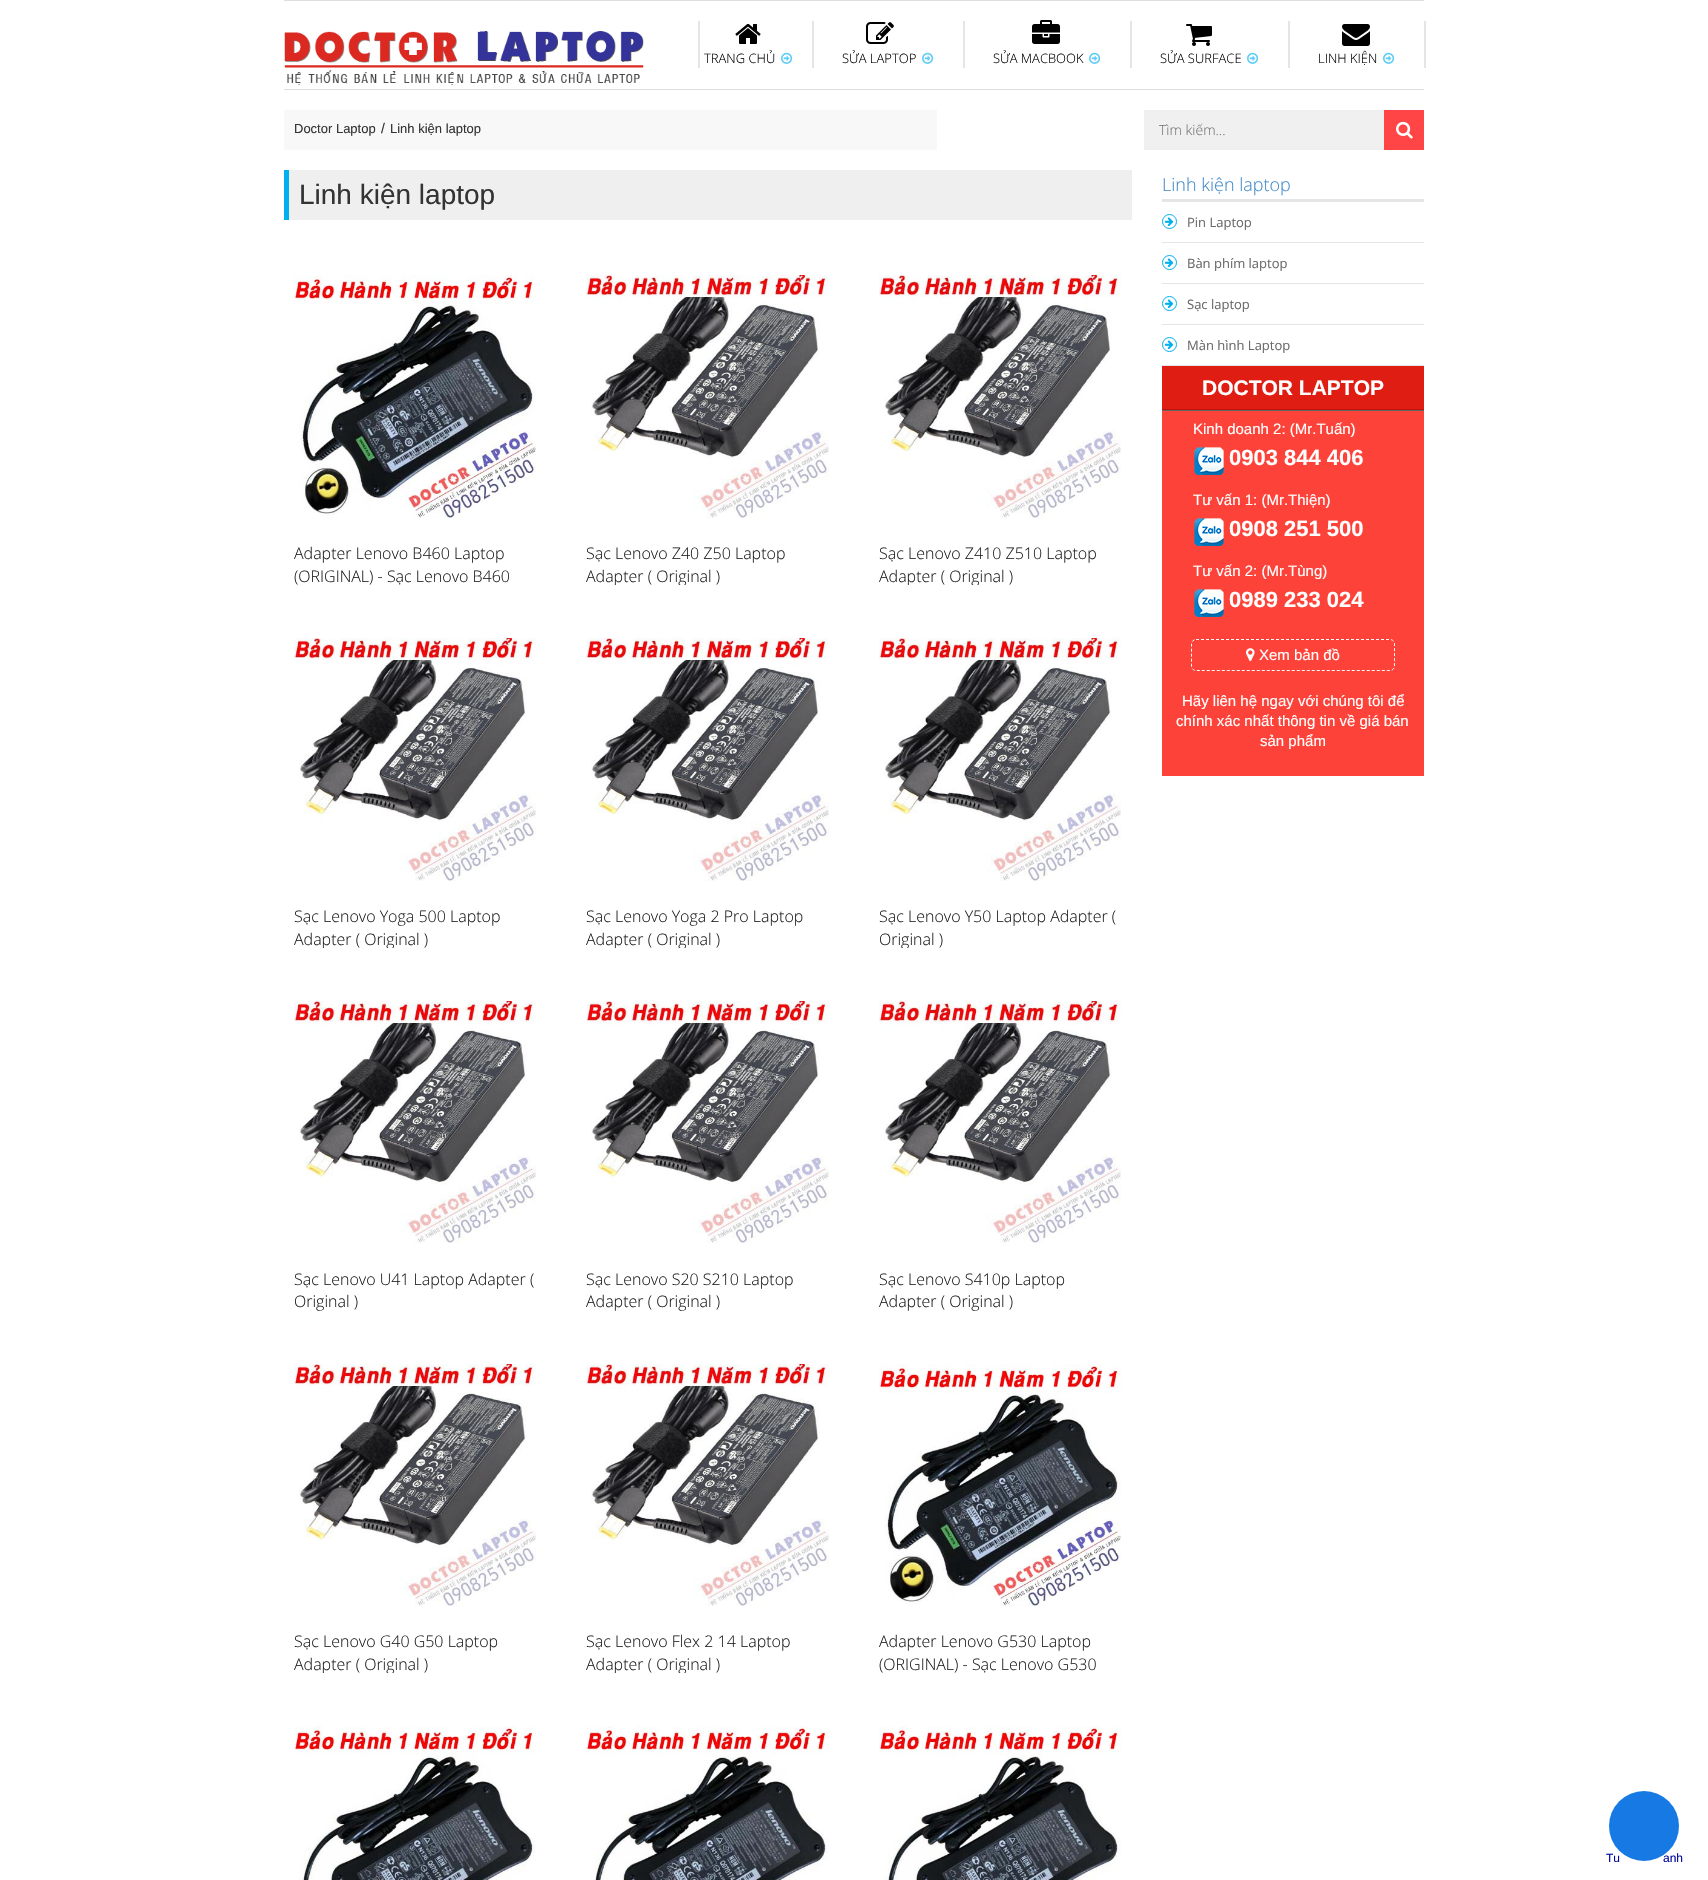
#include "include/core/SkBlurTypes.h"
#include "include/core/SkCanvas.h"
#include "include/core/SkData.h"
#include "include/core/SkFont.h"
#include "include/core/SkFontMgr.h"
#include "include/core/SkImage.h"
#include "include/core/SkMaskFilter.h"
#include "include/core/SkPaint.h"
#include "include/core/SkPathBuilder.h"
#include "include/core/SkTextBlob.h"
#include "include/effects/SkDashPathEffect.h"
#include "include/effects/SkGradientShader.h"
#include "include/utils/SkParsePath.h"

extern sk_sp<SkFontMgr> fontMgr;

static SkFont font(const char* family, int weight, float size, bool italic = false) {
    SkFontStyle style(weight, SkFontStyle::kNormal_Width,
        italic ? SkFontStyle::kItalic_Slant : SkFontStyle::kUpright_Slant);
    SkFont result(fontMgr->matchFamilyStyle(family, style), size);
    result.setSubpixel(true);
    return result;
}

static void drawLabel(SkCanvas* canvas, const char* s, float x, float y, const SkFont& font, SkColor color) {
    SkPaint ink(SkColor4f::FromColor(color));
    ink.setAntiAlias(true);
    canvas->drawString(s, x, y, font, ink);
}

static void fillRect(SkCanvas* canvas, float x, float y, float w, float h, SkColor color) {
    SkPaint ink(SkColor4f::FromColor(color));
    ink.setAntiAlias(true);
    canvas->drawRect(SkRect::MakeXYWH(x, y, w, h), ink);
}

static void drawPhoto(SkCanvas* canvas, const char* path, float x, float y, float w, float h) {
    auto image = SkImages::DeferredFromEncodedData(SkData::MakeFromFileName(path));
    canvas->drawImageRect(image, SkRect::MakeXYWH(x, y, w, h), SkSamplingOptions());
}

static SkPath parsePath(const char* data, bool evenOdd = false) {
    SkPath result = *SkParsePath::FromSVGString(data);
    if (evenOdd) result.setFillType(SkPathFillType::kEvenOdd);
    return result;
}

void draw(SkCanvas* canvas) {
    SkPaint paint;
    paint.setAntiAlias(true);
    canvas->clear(0xFFFFFFFF);
    fillRect(canvas, 284, 0, 1140, 1, 0xFFDDDDDD);
    fillRect(canvas, 284, 89, 1140, 1, 0xFFDDDDDD);
    drawPhoto(canvas, "assets/img1.png", 284, 31, 360, 54);
    fillRect(canvas, 698, 21, 2, 47, 0xFFE5E5E5);
    drawPhoto(canvas, "assets/img2.png", 735, 24, 26, 20);
    SkFont font1 = font("Open Sans", 300, 13);
    drawLabel(canvas, "TRANG CHỦ", 704, 63, font1, 0xFF000000);
    drawPhoto(canvas, "assets/img3.png", 781, 52, 12, 12);
    fillRect(canvas, 812, 21, 2, 47, 0xFFE5E5E5);
    drawPhoto(canvas, "assets/img4.png", 866, 22, 28, 22);
    drawLabel(canvas, "SỬA LAPTOP", 842, 63, font1, 0xFF000000);
    drawPhoto(canvas, "assets/img3.png", 922, 52, 12, 12);
    fillRect(canvas, 963, 21, 2, 47, 0xFFE5E5E5);
    drawPhoto(canvas, "assets/img5.png", 1032, 20, 28, 24);
    drawLabel(canvas, "SỬA MACBOOK", 993, 63, font1, 0xFF000000);
    drawPhoto(canvas, "assets/img3.png", 1089, 52, 12, 12);
    fillRect(canvas, 1130, 21, 2, 47, 0xFFE5E5E5);
    drawPhoto(canvas, "assets/img6.png", 1186, 24, 26, 22);
    drawLabel(canvas, "SỬA SURFACE", 1160, 63, font1, 0xFF000000);
    drawPhoto(canvas, "assets/img3.png", 1247, 52, 12, 12);
    fillRect(canvas, 1288, 21, 2, 47, 0xFFE5E5E5);
    drawPhoto(canvas, "assets/img7.png", 1342, 24, 28, 22);
    drawLabel(canvas, "LINH KIỆN", 1318, 63, font1, 0xFF000000);
    drawPhoto(canvas, "assets/img3.png", 1383, 52, 12, 12);
    fillRect(canvas, 1424, 21, 2, 47, 0xFFE5E5E5);
    fillRect(canvas, 284, 110, 653, 40, 0xFFF8F8F8);
    SkFont font2 = font("Liberation Sans", 400, 13);
    drawLabel(canvas, "Doctor Laptop", 294, 133, font2, 0xFF333333);
    SkFont font3 = font("Liberation Sans", 400, 14);
    drawLabel(canvas, "/", 381, 133, font3, 0xFF333333);
    drawLabel(canvas, "Linh kiện laptop", 390, 133, font2, 0xFF333333);
    fillRect(canvas, 1144, 110, 240, 40, 0xFFF0F0F0);
    SkFont font4 = font("Open Sans", 300, 14);
    drawLabel(canvas, "Tìm kiếm...", 1159, 135, font4, 0xFF757575);
    fillRect(canvas, 1384, 110, 40, 40, 0xFFFF4545);
    drawPhoto(canvas, "assets/img8.png", 1396, 121, 17, 18);
    fillRect(canvas, 289, 170, 843, 50, 0xFFEFEFEF);
    fillRect(canvas, 284, 170, 5, 50, 0xFF00AFF0);
    SkFont font5 = font("Liberation Sans", 400, 28);
    drawLabel(canvas, "Linh kiện laptop", 299, 204, font5, 0xFF333333);
    drawPhoto(canvas, "assets/img9.png", 294, 275, 242, 243);
    SkFont font6 = font("Open Sans", 300, 16);
    drawLabel(canvas, "Adapter Lenovo B460 Laptop", 294, 559, font6, 0xFF222222);
    drawLabel(canvas, "(ORIGINAL) - Sạc Lenovo B460", 294, 582, font6, 0xFF222222);
    drawPhoto(canvas, "assets/img10.png", 586, 275, 243, 243);
    drawLabel(canvas, "Sạc Lenovo Z40 Z50 Laptop", 586, 559, font6, 0xFF222222);
    canvas->save();
    canvas->clipRect(SkRect::MakeXYWH(586, 542, 243, 43));
    drawLabel(canvas, "Adapter ( Original )", 586, 582, font6, 0xFF222222);
    canvas->restore();
    drawPhoto(canvas, "assets/img11.png", 879, 275, 242, 243);
    drawLabel(canvas, "Sạc Lenovo Z410 Z510 Laptop", 879, 559, font6, 0xFF222222);
    canvas->save();
    canvas->clipRect(SkRect::MakeXYWH(879, 542, 242, 43));
    drawLabel(canvas, "Adapter ( Original )", 879, 582, font6, 0xFF222222);
    canvas->restore();
    drawPhoto(canvas, "assets/img11.png", 294, 638, 242, 243);
    drawLabel(canvas, "Sạc Lenovo Yoga 500 Laptop", 294, 922, font6, 0xFF222222);
    canvas->save();
    canvas->clipRect(SkRect::MakeXYWH(294, 905, 242, 43));
    drawLabel(canvas, "Adapter ( Original )", 294, 945, font6, 0xFF222222);
    canvas->restore();
    drawPhoto(canvas, "assets/img10.png", 586, 638, 243, 243);
    drawLabel(canvas, "Sạc Lenovo Yoga 2 Pro Laptop", 586, 922, font6, 0xFF222222);
    canvas->save();
    canvas->clipRect(SkRect::MakeXYWH(586, 905, 243, 43));
    drawLabel(canvas, "Adapter ( Original )", 586, 945, font6, 0xFF222222);
    canvas->restore();
    drawPhoto(canvas, "assets/img11.png", 879, 638, 242, 243);
    drawLabel(canvas, "Sạc Lenovo Y50 Laptop Adapter (", 879, 922, font6, 0xFF222222);
    canvas->save();
    canvas->clipRect(SkRect::MakeXYWH(879, 905, 242, 43));
    drawLabel(canvas, "Original )", 879, 945, font6, 0xFF222222);
    canvas->restore();
    drawPhoto(canvas, "assets/img12.png", 294, 1001, 242, 242);
    drawLabel(canvas, "Sạc Lenovo U41 Laptop Adapter (", 294, 1285, font6, 0xFF222222);
    drawLabel(canvas, "Original )", 294, 1307, font6, 0xFF222222);
    drawPhoto(canvas, "assets/img13.png", 586, 1001, 243, 242);
    drawLabel(canvas, "Sạc Lenovo S20 S210 Laptop", 586, 1285, font6, 0xFF222222);
    drawLabel(canvas, "Adapter ( Original )", 586, 1307, font6, 0xFF222222);
    drawPhoto(canvas, "assets/img12.png", 879, 1001, 242, 242);
    drawLabel(canvas, "Sạc Lenovo S410p Laptop", 879, 1285, font6, 0xFF222222);
    drawLabel(canvas, "Adapter ( Original )", 879, 1307, font6, 0xFF222222);
    drawPhoto(canvas, "assets/img14.png", 294, 1364, 242, 242);
    drawLabel(canvas, "Sạc Lenovo G40 G50 Laptop", 294, 1647, font6, 0xFF222222);
    canvas->save();
    canvas->clipRect(SkRect::MakeXYWH(294, 1630, 242, 43));
    drawLabel(canvas, "Adapter ( Original )", 294, 1670, font6, 0xFF222222);
    canvas->restore();
    drawPhoto(canvas, "assets/img15.png", 586, 1364, 243, 242);
    drawLabel(canvas, "Sạc Lenovo Flex 2 14 Laptop", 586, 1647, font6, 0xFF222222);
    canvas->save();
    canvas->clipRect(SkRect::MakeXYWH(586, 1630, 243, 43));
    drawLabel(canvas, "Adapter ( Original )", 586, 1670, font6, 0xFF222222);
    canvas->restore();
    drawPhoto(canvas, "assets/img16.png", 879, 1364, 242, 242);
    drawLabel(canvas, "Adapter Lenovo G530 Laptop", 879, 1647, font6, 0xFF222222);
    drawLabel(canvas, "(ORIGINAL) - Sạc Lenovo G530", 879, 1670, font6, 0xFF222222);
    drawPhoto(canvas, "assets/img17.png", 294, 1726, 242, 154);
    drawPhoto(canvas, "assets/img18.png", 586, 1726, 243, 154);
    drawPhoto(canvas, "assets/img17.png", 879, 1726, 242, 154);
    fillRect(canvas, 1162, 199, 262, 3, 0xFFE5E5E5);
    SkFont font7 = font("Open Sans", 300, 18);
    drawLabel(canvas, "Linh kiện laptop", 1162, 191, font7, 0xFF428BCA);
    fillRect(canvas, 1162, 242, 262, 1, 0xFFE5E5E5);
    paint.setStroke(true);
    paint.setStrokeWidth(1);
    paint.setColor(0xFF00AFF0);
    canvas->drawCircle(1169.5f, 221.5f, 7, paint);
    drawPhoto(canvas, "assets/img19.png", 1165, 217, 9, 10);
    SkFont font8 = font("Open Sans", 400, 13);
    drawLabel(canvas, "Pin Laptop", 1187, 227, font8, 0xFF6A6A6A);
    fillRect(canvas, 1162, 283, 262, 1, 0xFFE5E5E5);
    canvas->drawCircle(1169.5f, 262.5f, 7, paint);
    drawPhoto(canvas, "assets/img19.png", 1165, 258, 9, 10);
    drawLabel(canvas, "Bàn phím laptop", 1187, 268, font8, 0xFF6A6A6A);
    fillRect(canvas, 1162, 324, 262, 1, 0xFFE5E5E5);
    canvas->drawCircle(1169.5f, 303.5f, 7, paint);
    drawPhoto(canvas, "assets/img19.png", 1165, 299, 9, 10);
    drawLabel(canvas, "Sạc laptop", 1187, 309, font8, 0xFF6A6A6A);
    fillRect(canvas, 1162, 365, 262, 1, 0xFFE5E5E5);
    canvas->drawCircle(1169.5f, 344.5f, 7, paint);
    drawPhoto(canvas, "assets/img19.png", 1165, 340, 9, 10);
    drawLabel(canvas, "Màn hình Laptop", 1187, 350, font8, 0xFF6A6A6A);
    fillRect(canvas, 1162, 366, 262, 43, 0xFFE01D12);
    fillRect(canvas, 1162, 409, 262, 1, 0xFFBA1108);
    SkFont font9 = font("Liberation Sans", 700, 21);
    drawLabel(canvas, "DOCTOR LAPTOP", 1202, 395, font9, 0xFFFFFFFF);
    fillRect(canvas, 1162, 411, 262, 365, 0xFFFD4339);
    fillRect(canvas, 1162, 410, 262, 1, 0xFF666666);
    SkFont font10 = font("Liberation Sans", 400, 15);
    drawLabel(canvas, "Kinh doanh 2: (Mr.Tuấn)", 1193, 434, font10, 0xFFFFFFFF);
    drawPhoto(canvas, "assets/img20.png", 1194, 447, 30, 28);
    SkFont font11 = font("Liberation Sans", 700, 22);
    drawLabel(canvas, "0903 844 406", 1229, 465, font11, 0xFFFFFFFF);
    drawLabel(canvas, "Tư vấn 1: (Mr.Thiện)", 1193, 505, font10, 0xFFFFFFFF);
    drawPhoto(canvas, "assets/img20.png", 1194, 518, 30, 28);
    drawLabel(canvas, "0908 251 500", 1229, 536, font11, 0xFFFFFFFF);
    drawLabel(canvas, "Tư vấn 2: (Mr.Tùng)", 1193, 576, font10, 0xFFFFFFFF);
    drawPhoto(canvas, "assets/img20.png", 1194, 589, 30, 28);
    drawLabel(canvas, "0989 233 024", 1229, 607, font11, 0xFFFFFFFF);
    paint.setColor(0xFFFFFFFF);
    paint.setPathEffect(SkDashPathEffect::Make({{3, 2}}, 0));
    canvas->drawPath(parsePath("M1196 639.5H1390C1392.5 639.5 1394.5 641.5 1394.5 644V666C1394.5 668.5 1392.5 670.5 1390 670.5H1196C1193.5 670.5 1191.5 668.5 1191.5 666V644C1191.5 641.5 1193.5 639.5 1196 639.5Z"), paint);
    paint.setPathEffect(nullptr);
    drawPhoto(canvas, "assets/img21.png", 1246, 648, 9, 13);
    drawLabel(canvas, "Xem bản đồ", 1259, 660, font10, 0xFFFFFFFF);
    drawLabel(canvas, "Hãy liên hệ ngay với chúng tôi để", 1182, 706, font10, 0xFFFFFFFF);
    drawLabel(canvas, "chính xác nhất thông tin về giá bán", 1176, 726, font10, 0xFFFFFFFF);
    drawLabel(canvas, "sản phẩm", 1260, 746, font10, 0xFFFFFFFF);
    SkFont font12 = font("Liberation Sans", 400, 12);
    drawLabel(canvas, "Tu", 1606, 1862, font12, 0xFF0008A0);
    drawLabel(canvas, "anh", 1663, 1862, font12, 0xFF0008A0);
    paint.setStroke(false);
    paint.setColor(0xFF1679E4);
    canvas->drawCircle(1644, 1826, 35, paint);
}
